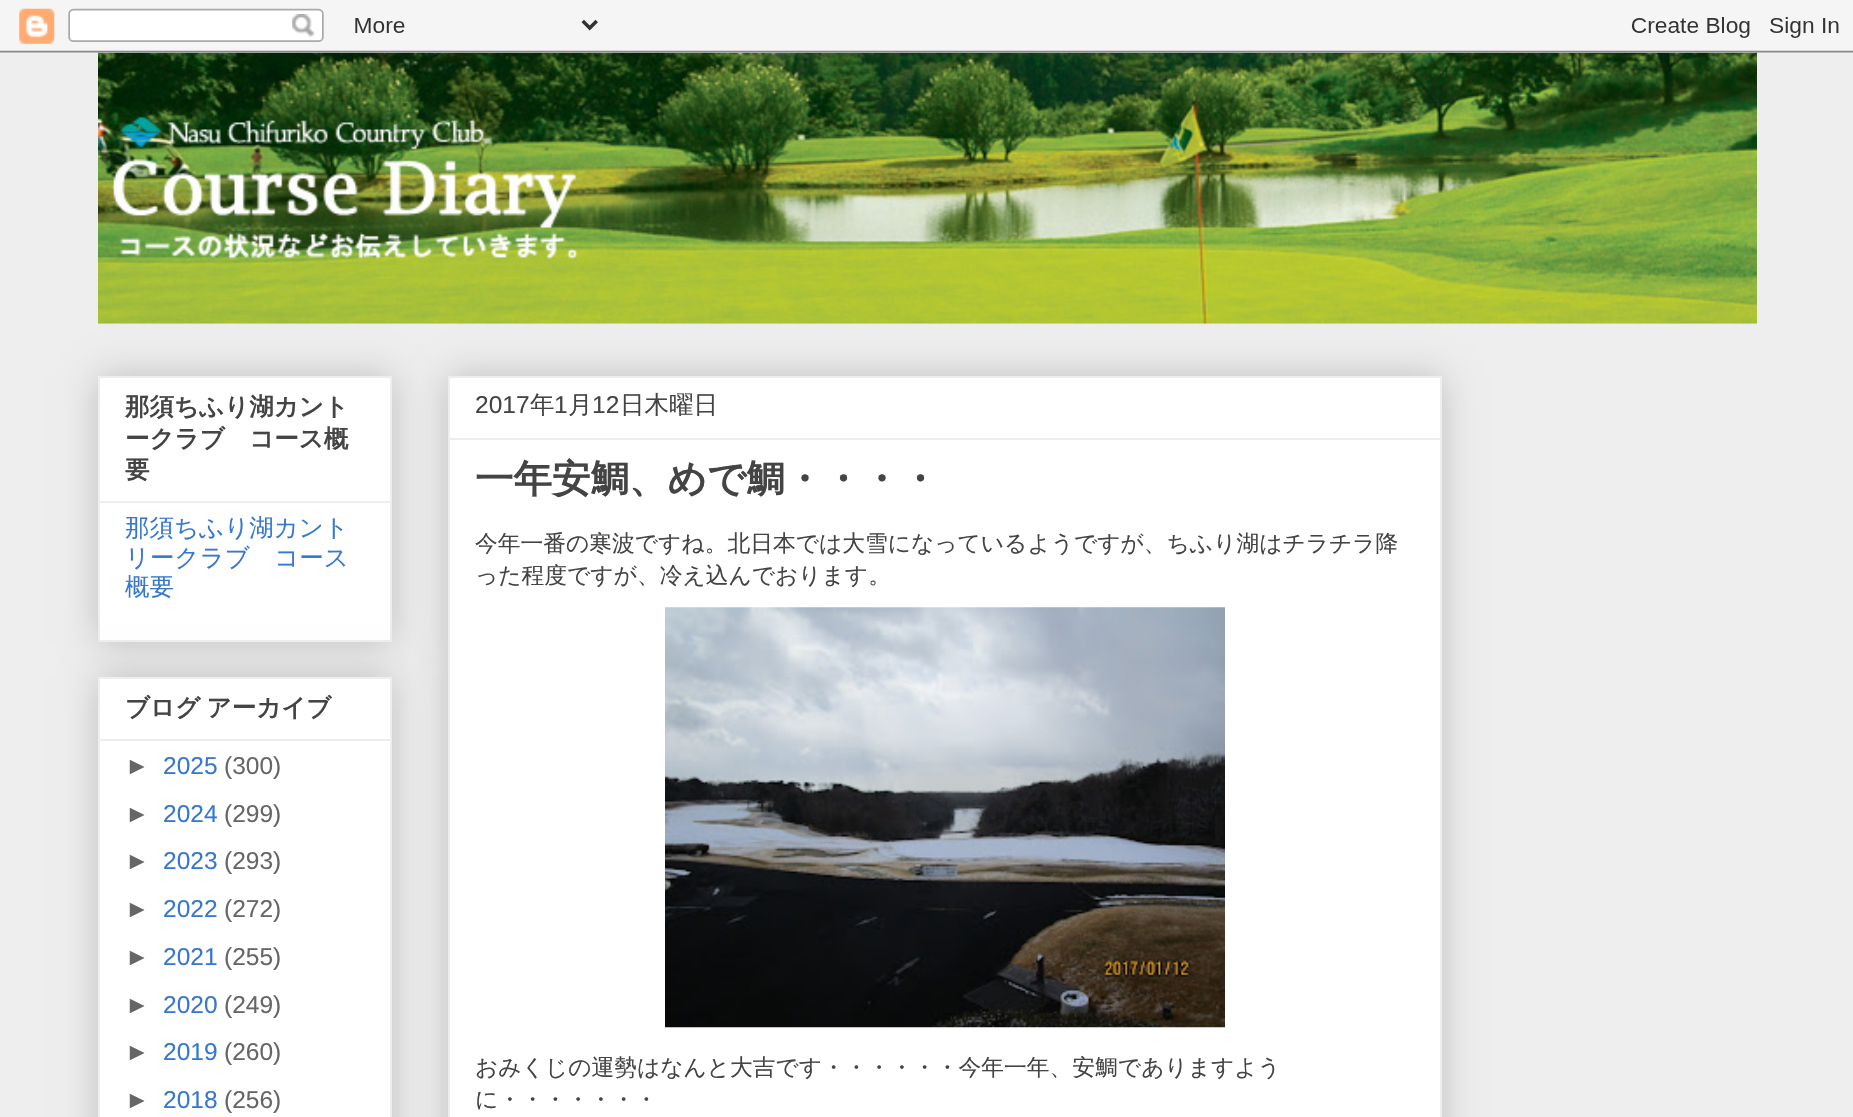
#include "include/core/SkBlurTypes.h"
#include "include/core/SkCanvas.h"
#include "include/core/SkData.h"
#include "include/core/SkFont.h"
#include "include/core/SkFontMgr.h"
#include "include/core/SkImage.h"
#include "include/core/SkMaskFilter.h"
#include "include/core/SkPaint.h"
#include "include/core/SkPathBuilder.h"
#include "include/core/SkTextBlob.h"
#include "include/effects/SkDashPathEffect.h"
#include "include/effects/SkGradientShader.h"
#include "include/utils/SkParsePath.h"

extern sk_sp<SkFontMgr> fontMgr;

static SkFont font(const char* family, int weight, float size, bool italic = false) {
    SkFontStyle style(weight, SkFontStyle::kNormal_Width,
        italic ? SkFontStyle::kItalic_Slant : SkFontStyle::kUpright_Slant);
    SkFont result(fontMgr->matchFamilyStyle(family, style), size);
    result.setSubpixel(true);
    return result;
}

static void drawLabel(SkCanvas* canvas, const char* s, float x, float y, const SkFont& font, SkColor color) {
    SkPaint ink(SkColor4f::FromColor(color));
    ink.setAntiAlias(true);
    canvas->drawString(s, x, y, font, ink);
}

static void drawTracked(SkCanvas* canvas, const char* s, float x, float y, const SkFont& font, const SkPaint& ink, float letter, float word) {
    std::vector<SkGlyphID> glyphs(font.countText(s, strlen(s), SkTextEncoding::kUTF8));
    std::vector<float> xs(glyphs.size());
    font.textToGlyphs(s, strlen(s), SkTextEncoding::kUTF8, glyphs);
    font.getXPos(glyphs, xs, x);
    float extra = 0;
    for (size_t i = 0; i < glyphs.size(); i++) {
        xs[i] += extra;
        extra += letter + word * (glyphs[i] == font.unicharToGlyph(' '));
    }
    canvas->drawTextBlob(SkTextBlob::MakeFromPosHGlyphs(glyphs, xs, y, font), 0, 0, ink);
}

static void fillRect(SkCanvas* canvas, float x, float y, float w, float h, SkColor color) {
    SkPaint ink(SkColor4f::FromColor(color));
    ink.setAntiAlias(true);
    canvas->drawRect(SkRect::MakeXYWH(x, y, w, h), ink);
}

static void drawPhoto(SkCanvas* canvas, const char* path, float x, float y, float w, float h) {
    auto image = SkImages::DeferredFromEncodedData(SkData::MakeFromFileName(path));
    canvas->drawImageRect(image, SkRect::MakeXYWH(x, y, w, h), SkSamplingOptions());
}

void draw(SkCanvas* canvas) {
    SkPaint paint;
    paint.setAntiAlias(true);
    canvas->clear(0xFFEEEEEE);
    drawPhoto(canvas, "assets/img2.png", 98, 52, 1659, 272);
    drawPhoto(canvas, "assets/img1.png", 0, 0, 1853, 53);
    paint.setColor(0x33000000);
    paint.setMaskFilter(SkMaskFilter::MakeBlur(kNormal_SkBlurStyle, 17.5f));
    canvas->drawRect(SkRect::MakeXYWH(98, 376, 294, 266), paint);
    paint.setMaskFilter(nullptr);
    paint.setColor(0xFFFFFFFF);
    canvas->drawRect(SkRect::MakeXYWH(99, 377, 292, 264), paint);
    paint.setStroke(true);
    paint.setStrokeWidth(2);
    paint.setColor(0xFFEEEEEE);
    canvas->drawRect(SkRect::MakeXYWH(99, 377, 292, 264), paint);
    SkFont font1 = font("WenQuanYi Zen Hei", 700, 24.5f);
    drawLabel(canvas, "那須ちふり湖カント", 125, 415, font1, 0xFF444444);
    drawLabel(canvas, "ークラブ　コース概", 125, 447, font1, 0xFF444444);
    drawLabel(canvas, "要", 125, 478, font1, 0xFF444444);
    fillRect(canvas, 100, 501, 290, 2, 0xFFEEEEEE);
    SkFont font2 = font("WenQuanYi Zen Hei", 500, 24.5f);
    drawLabel(canvas, "那須ちふり湖カント", 125, 536, font2, 0xFF3778CD);
    drawLabel(canvas, "リークラブ　コース", 125, 566, font2, 0xFF3778CD);
    drawLabel(canvas, "概要", 125, 595, font2, 0xFF3778CD);
    paint.setStroke(false);
    paint.setColor(0x33000000);
    paint.setMaskFilter(SkMaskFilter::MakeBlur(kNormal_SkBlurStyle, 17.5f));
    canvas->drawRect(SkRect::MakeXYWH(98, 677, 294, 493), paint);
    paint.setMaskFilter(nullptr);
    paint.setColor(0xFFFFFFFF);
    canvas->drawRect(SkRect::MakeXYWH(99, 678, 292, 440), paint);
    paint.setStroke(true);
    paint.setColor(0xFFEEEEEE);
    canvas->drawRect(SkRect::MakeXYWH(99, 678, 292, 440), paint);
    paint.setStroke(false);
    paint.setColor(0xFF444444);
    drawTracked(canvas, "ブログ アーカイブ", 125, 716, font1, paint, 0, -1);
    fillRect(canvas, 100, 739, 290, 2, 0xFFEEEEEE);
    SkFont font3 = font("Liberation Sans", 400, 24.5f);
    drawLabel(canvas, "►", 125, 774, font3, 0xFF666666);
    drawLabel(canvas, "2025", 163, 774, font3, 0xFF3778CD);
    drawLabel(canvas, "(300)", 224, 774, font3, 0xFF666666);
    drawLabel(canvas, "►", 125, 822, font3, 0xFF666666);
    drawLabel(canvas, "2024", 163, 822, font3, 0xFF3778CD);
    drawLabel(canvas, "(299)", 224, 822, font3, 0xFF666666);
    drawLabel(canvas, "►", 125, 869, font3, 0xFF666666);
    drawLabel(canvas, "2023", 163, 869, font3, 0xFF3778CD);
    drawLabel(canvas, "(293)", 224, 869, font3, 0xFF666666);
    drawLabel(canvas, "►", 125, 917, font3, 0xFF666666);
    drawLabel(canvas, "2022", 163, 917, font3, 0xFF3778CD);
    drawLabel(canvas, "(272)", 224, 917, font3, 0xFF666666);
    drawLabel(canvas, "►", 125, 965, font3, 0xFF666666);
    drawLabel(canvas, "2021", 163, 965, font3, 0xFF3778CD);
    drawLabel(canvas, "(255)", 224, 965, font3, 0xFF666666);
    drawLabel(canvas, "►", 125, 1013, font3, 0xFF666666);
    drawLabel(canvas, "2020", 163, 1013, font3, 0xFF3778CD);
    drawLabel(canvas, "(249)", 224, 1013, font3, 0xFF666666);
    drawLabel(canvas, "►", 125, 1060, font3, 0xFF666666);
    drawLabel(canvas, "2019", 163, 1060, font3, 0xFF3778CD);
    drawLabel(canvas, "(260)", 224, 1060, font3, 0xFF666666);
    drawLabel(canvas, "►", 125, 1108, font3, 0xFF666666);
    drawLabel(canvas, "2018", 163, 1108, font3, 0xFF3778CD);
    drawLabel(canvas, "(256)", 224, 1108, font3, 0xFF666666);
    paint.setColor(0x33000000);
    paint.setMaskFilter(SkMaskFilter::MakeBlur(kNormal_SkBlurStyle, 17.5f));
    canvas->drawRect(SkRect::MakeXYWH(448, 376, 994, 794), paint);
    paint.setMaskFilter(nullptr);
    paint.setColor(0xFFFFFFFF);
    canvas->drawRect(SkRect::MakeXYWH(449, 377, 992, 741), paint);
    paint.setStroke(true);
    paint.setColor(0xFFEEEEEE);
    canvas->drawRect(SkRect::MakeXYWH(449, 377, 992, 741), paint);
    drawLabel(canvas, "2017", 475, 413, font3, 0xFF444444);
    drawLabel(canvas, "年", 530, 413, font2, 0xFF444444);
    drawLabel(canvas, "1", 554, 413, font3, 0xFF444444);
    drawLabel(canvas, "月", 568, 413, font2, 0xFF444444);
    drawLabel(canvas, "12", 592, 413, font3, 0xFF444444);
    drawLabel(canvas, "日木曜日", 620, 413, font2, 0xFF444444);
    fillRect(canvas, 450, 438, 990, 2, 0xFFEEEEEE);
    SkFont font4 = font("WenQuanYi Zen Hei", 700, 38.5f);
    drawLabel(canvas, "一年安鯛、めで鯛・・・・", 475, 492, font4, 0xFF444444);
    SkFont font5 = font("WenQuanYi Zen Hei", 500, 22.75f);
    drawLabel(canvas, "今年一番の寒波ですね。北日本では大雪になっているようですが、ちふり湖はチラチラ降", 475, 551, font5, 0xFF444444);
    drawLabel(canvas, "った程度ですが、冷え込んでおります。", 475, 583, font5, 0xFF444444);
    drawPhoto(canvas, "assets/img3.png", 665, 607, 560, 421);
    drawLabel(canvas, "おみくじの運勢はなんと大吉です・・・・・・今年一年、安鯛でありますよう", 475, 1075, font5, 0xFF444444);
    drawLabel(canvas, "に・・・・・・・", 475, 1107, font5, 0xFF444444);
}
